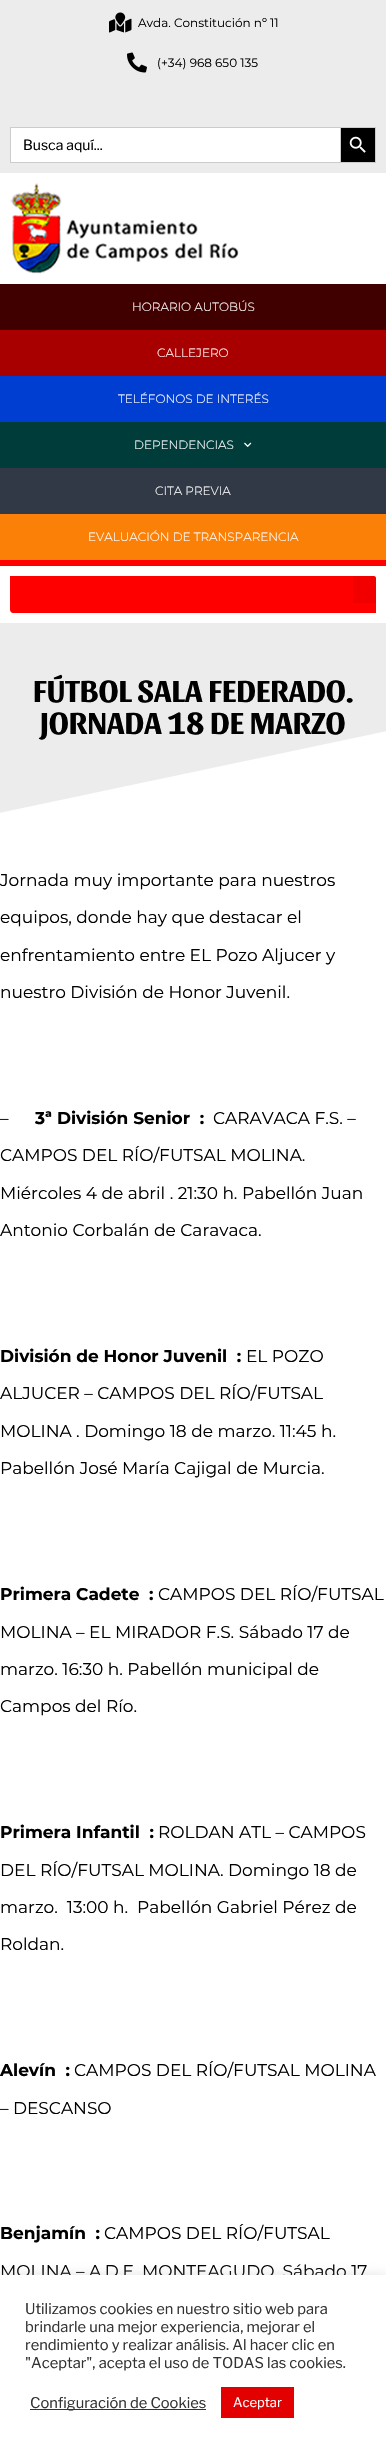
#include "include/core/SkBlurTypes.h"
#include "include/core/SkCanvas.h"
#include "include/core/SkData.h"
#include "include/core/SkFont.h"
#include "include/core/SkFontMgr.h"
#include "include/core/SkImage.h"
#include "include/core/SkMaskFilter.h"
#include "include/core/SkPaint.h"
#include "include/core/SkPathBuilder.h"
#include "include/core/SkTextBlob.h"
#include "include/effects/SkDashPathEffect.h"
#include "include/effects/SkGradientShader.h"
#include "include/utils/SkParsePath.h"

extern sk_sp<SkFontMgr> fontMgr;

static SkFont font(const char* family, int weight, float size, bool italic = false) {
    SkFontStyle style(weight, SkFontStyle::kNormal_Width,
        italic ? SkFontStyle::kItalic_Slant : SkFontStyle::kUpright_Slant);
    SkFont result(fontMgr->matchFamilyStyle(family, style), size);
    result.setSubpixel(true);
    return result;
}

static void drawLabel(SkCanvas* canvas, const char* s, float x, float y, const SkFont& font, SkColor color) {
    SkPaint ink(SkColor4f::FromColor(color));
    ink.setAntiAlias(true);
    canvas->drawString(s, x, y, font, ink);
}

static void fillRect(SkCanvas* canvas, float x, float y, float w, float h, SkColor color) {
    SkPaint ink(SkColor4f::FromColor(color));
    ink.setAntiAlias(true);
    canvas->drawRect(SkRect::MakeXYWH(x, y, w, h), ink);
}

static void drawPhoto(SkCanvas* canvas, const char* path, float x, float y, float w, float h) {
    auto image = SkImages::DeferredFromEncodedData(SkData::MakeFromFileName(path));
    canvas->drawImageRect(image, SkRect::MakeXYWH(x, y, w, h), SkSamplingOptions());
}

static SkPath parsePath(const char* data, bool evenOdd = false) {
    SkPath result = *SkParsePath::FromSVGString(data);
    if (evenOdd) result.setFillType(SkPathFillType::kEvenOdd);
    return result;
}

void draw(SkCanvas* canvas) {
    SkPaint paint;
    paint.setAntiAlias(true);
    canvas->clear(0xFFFFFFFF);
    fillRect(canvas, 0, 0, 386, 173, 0xFFECECEC);
    drawPhoto(canvas, "assets/img1.png", 109, 12, 23, 21);
    SkFont font1 = font("Montserrat", 400, 12);
    drawLabel(canvas, "Avda. Constitución nº 11", 138, 27, font1, 0xFF000000);
    drawPhoto(canvas, "assets/img2.png", 127, 52, 20, 21);
    drawLabel(canvas, "(+34) 968 650 135", 157, 67, font1, 0xFF000000);
    fillRect(canvas, 11, 128, 329, 34, 0xFFFFFFFF);
    fillRect(canvas, 10, 127, 330, 1, 0xFFCCCCCC);
    fillRect(canvas, 10, 162, 330, 1, 0xFFCCCCCC);
    fillRect(canvas, 10, 127, 1, 36, 0xFFCCCCCC);
    SkFont font2 = font("Libre Franklin", 400, 14);
    drawLabel(canvas, "Busca aquí...", 23, 150, font2, 0xFF000000);
    paint.setColor(0xFF000000);
    canvas->drawRect(SkRect::MakeXYWH(340.5f, 127.5f, 35, 35), paint);
    paint.setStroke(true);
    paint.setStrokeWidth(1);
    paint.setColor(0xFFCCCCCC);
    canvas->drawRect(SkRect::MakeXYWH(340.5f, 127.5f, 35, 35), paint);
    drawPhoto(canvas, "assets/img3.png", 349, 136, 17, 17);
    drawPhoto(canvas, "assets/img4.png", 10, 183, 229, 91);
    fillRect(canvas, 0, 284, 386, 46, 0xFF400000);
    SkFont font3 = font("Montserrat", 300, 12);
    drawLabel(canvas, "HORARIO AUTOBÚS", 132, 311, font3, 0xFFFFFFFF);
    fillRect(canvas, 0, 330, 386, 46, 0xFFA80000);
    drawLabel(canvas, "CALLEJERO", 157, 357, font3, 0xFFFFFFFF);
    fillRect(canvas, 0, 376, 386, 46, 0xFF003ED1);
    drawLabel(canvas, "TELÉFONOS DE INTERÉS", 118, 403, font3, 0xFFFFFFFF);
    fillRect(canvas, 0, 422, 386, 46, 0xFF003C3A);
    drawLabel(canvas, "DEPENDENCIAS", 134, 449, font3, 0xFFFFFFFF);
    drawPhoto(canvas, "assets/img5.png", 244, 442, 8, 5);
    fillRect(canvas, 0, 468, 386, 46, 0xFF313946);
    drawLabel(canvas, "CITA PREVIA", 155, 495, font3, 0xFFFFFFFF);
    fillRect(canvas, 0, 514, 386, 46, 0xFFFB8008);
    drawLabel(canvas, "EVALUACIÓN DE TRANSPARENCIA", 88, 541, font3, 0xFFFFFFFF);
    fillRect(canvas, 0, 560, 386, 6, 0xFFFF0000);
    paint.setStroke(false);
    paint.setColor(0xFFFF0000);
    canvas->drawPath(parsePath("M10 576H374C375 576 376 577 376 578V613H13C11.5 613 10 611.5 10 610Z"), paint);
    fillRect(canvas, 353, 576, 23, 27, 0x0D000000);
    fillRect(canvas, 0, 623, 386, 190, 0xFFECECEC);
    SkFont font4 = font("Sansita", 700, 32);
    drawLabel(canvas, "FÚTBOL SALA FEDERADO.", 33, 702, font4, 0xFF000000);
    paint.setColor(0xFFFFFFFF);
    canvas->drawPath(parsePath("M-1 813V818H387V731Z"), paint);
    drawLabel(canvas, "JORNADA 18 DE MARZO", 40, 734, font4, 0xFF000000);
    SkFont font5 = font("Montserrat", 400, 17);
    drawLabel(canvas, "Jornada muy importante para nuestros", 0, 886, font5, 0xFF000000);
    drawLabel(canvas, "equipos, donde hay que destacar el", 0, 923, font5, 0xFF000000);
    drawLabel(canvas, "enfrentamiento entre EL Pozo Aljucer y", 0, 961, font5, 0xFF000000);
    drawLabel(canvas, "nuestro División de Honor Juvenil.", 0, 998, font5, 0xFF000000);
    drawLabel(canvas, "–", 0, 1124, font5, 0xFF000000);
    SkFont font6 = font("Montserrat", 700, 17);
    drawLabel(canvas, "3ª División Senior  :", 35, 1124, font6, 0xFF000000);
    drawLabel(canvas, "CARAVACA F.S. –", 213, 1124, font5, 0xFF000000);
    drawLabel(canvas, "CAMPOS DEL RÍO/FUTSAL MOLINA.", 0, 1161, font5, 0xFF000000);
    drawLabel(canvas, "Miércoles 4 de abril . 21:30 h. Pabellón Juan", 0, 1199, font5, 0xFF000000);
    drawLabel(canvas, "Antonio Corbalán de Caravaca.", 0, 1236, font5, 0xFF000000);
    drawLabel(canvas, "División de Honor Juvenil  :", 0, 1362, font6, 0xFF000000);
    drawLabel(canvas, "EL POZO", 246, 1362, font5, 0xFF000000);
    drawLabel(canvas, "ALJUCER – CAMPOS DEL RÍO/FUTSAL", 0, 1399, font5, 0xFF000000);
    drawLabel(canvas, "MOLINA . Domingo 18 de marzo. 11:45 h.", 0, 1437, font5, 0xFF000000);
    drawLabel(canvas, "Pabellón José María Cajigal de Murcia.", 0, 1474, font5, 0xFF000000);
    drawLabel(canvas, "Primera Cadete  :", 0, 1600, font6, 0xFF000000);
    drawLabel(canvas, "CAMPOS DEL RÍO/FUTSAL", 158, 1600, font5, 0xFF000000);
    drawLabel(canvas, "MOLINA – EL MIRADOR F.S. Sábado 17 de", 0, 1638, font5, 0xFF000000);
    drawLabel(canvas, "marzo. 16:30 h. Pabellón municipal de", 0, 1675, font5, 0xFF000000);
    drawLabel(canvas, "Campos del Río.", 0, 1712, font5, 0xFF000000);
    drawLabel(canvas, "Primera Infantil  :", 0, 1838, font6, 0xFF000000);
    drawLabel(canvas, "ROLDAN ATL – CAMPOS", 158, 1838, font5, 0xFF000000);
    drawLabel(canvas, "DEL RÍO/FUTSAL MOLINA. Domingo 18 de", 0, 1876, font5, 0xFF000000);
    drawLabel(canvas, "marzo.  13:00 h.  Pabellón Gabriel Pérez de", 0, 1913, font5, 0xFF000000);
    drawLabel(canvas, "Roldan.", 0, 1950, font5, 0xFF000000);
    drawLabel(canvas, "Alevín  :", 0, 2076, font6, 0xFF000000);
    drawLabel(canvas, "CAMPOS DEL RÍO/FUTSAL MOLINA", 74, 2076, font5, 0xFF000000);
    drawLabel(canvas, "– DESCANSO", 0, 2114, font5, 0xFF000000);
    drawLabel(canvas, "Benjamín  :", 0, 2239, font6, 0xFF000000);
    drawLabel(canvas, "CAMPOS DEL RÍO/FUTSAL", 104, 2239, font5, 0xFF000000);
    drawLabel(canvas, "MOLINA – A.D.E. MONTEAGUDO. Sábado 17", 0, 2277, font5, 0xFF000000);
    paint.setColor(0x4DACABAB);
    paint.setMaskFilter(SkMaskFilter::MakeBlur(kNormal_SkBlurStyle, 5));
    canvas->drawRect(SkRect::MakeXYWH(0, 2274, 386, 173), paint);
    paint.setMaskFilter(nullptr);
    fillRect(canvas, 0, 2275, 386, 173, 0xFFFFFFFF);
    SkFont font7 = font("Libre Franklin", 400, 14.7f);
    drawLabel(canvas, "Utilizamos cookies en nuestro sitio web para", 25, 2314, font7, 0xFF333333);
    drawLabel(canvas, "brindarle una mejor experiencia, mejorar el", 25, 2332, font7, 0xFF333333);
    drawLabel(canvas, "rendimiento y realizar análisis. Al hacer clic en", 25, 2350, font7, 0xFF333333);
    drawLabel(canvas, "\"Aceptar\", acepta el uso de TODAS las cookies.", 25, 2368, font7, 0xFF333333);
    fillRect(canvas, 30, 2409, 176, 1, 0xFF333333);
    drawLabel(canvas, "Configuración de Cookies", 30, 2408, font7, 0xFF333333);
    fillRect(canvas, 221, 2387, 73, 31, 0xFFE30000);
    SkFont font8 = font("Libre Franklin", 400, 13);
    drawLabel(canvas, "Aceptar", 233, 2407, font8, 0xFFFFFFFF);
}
